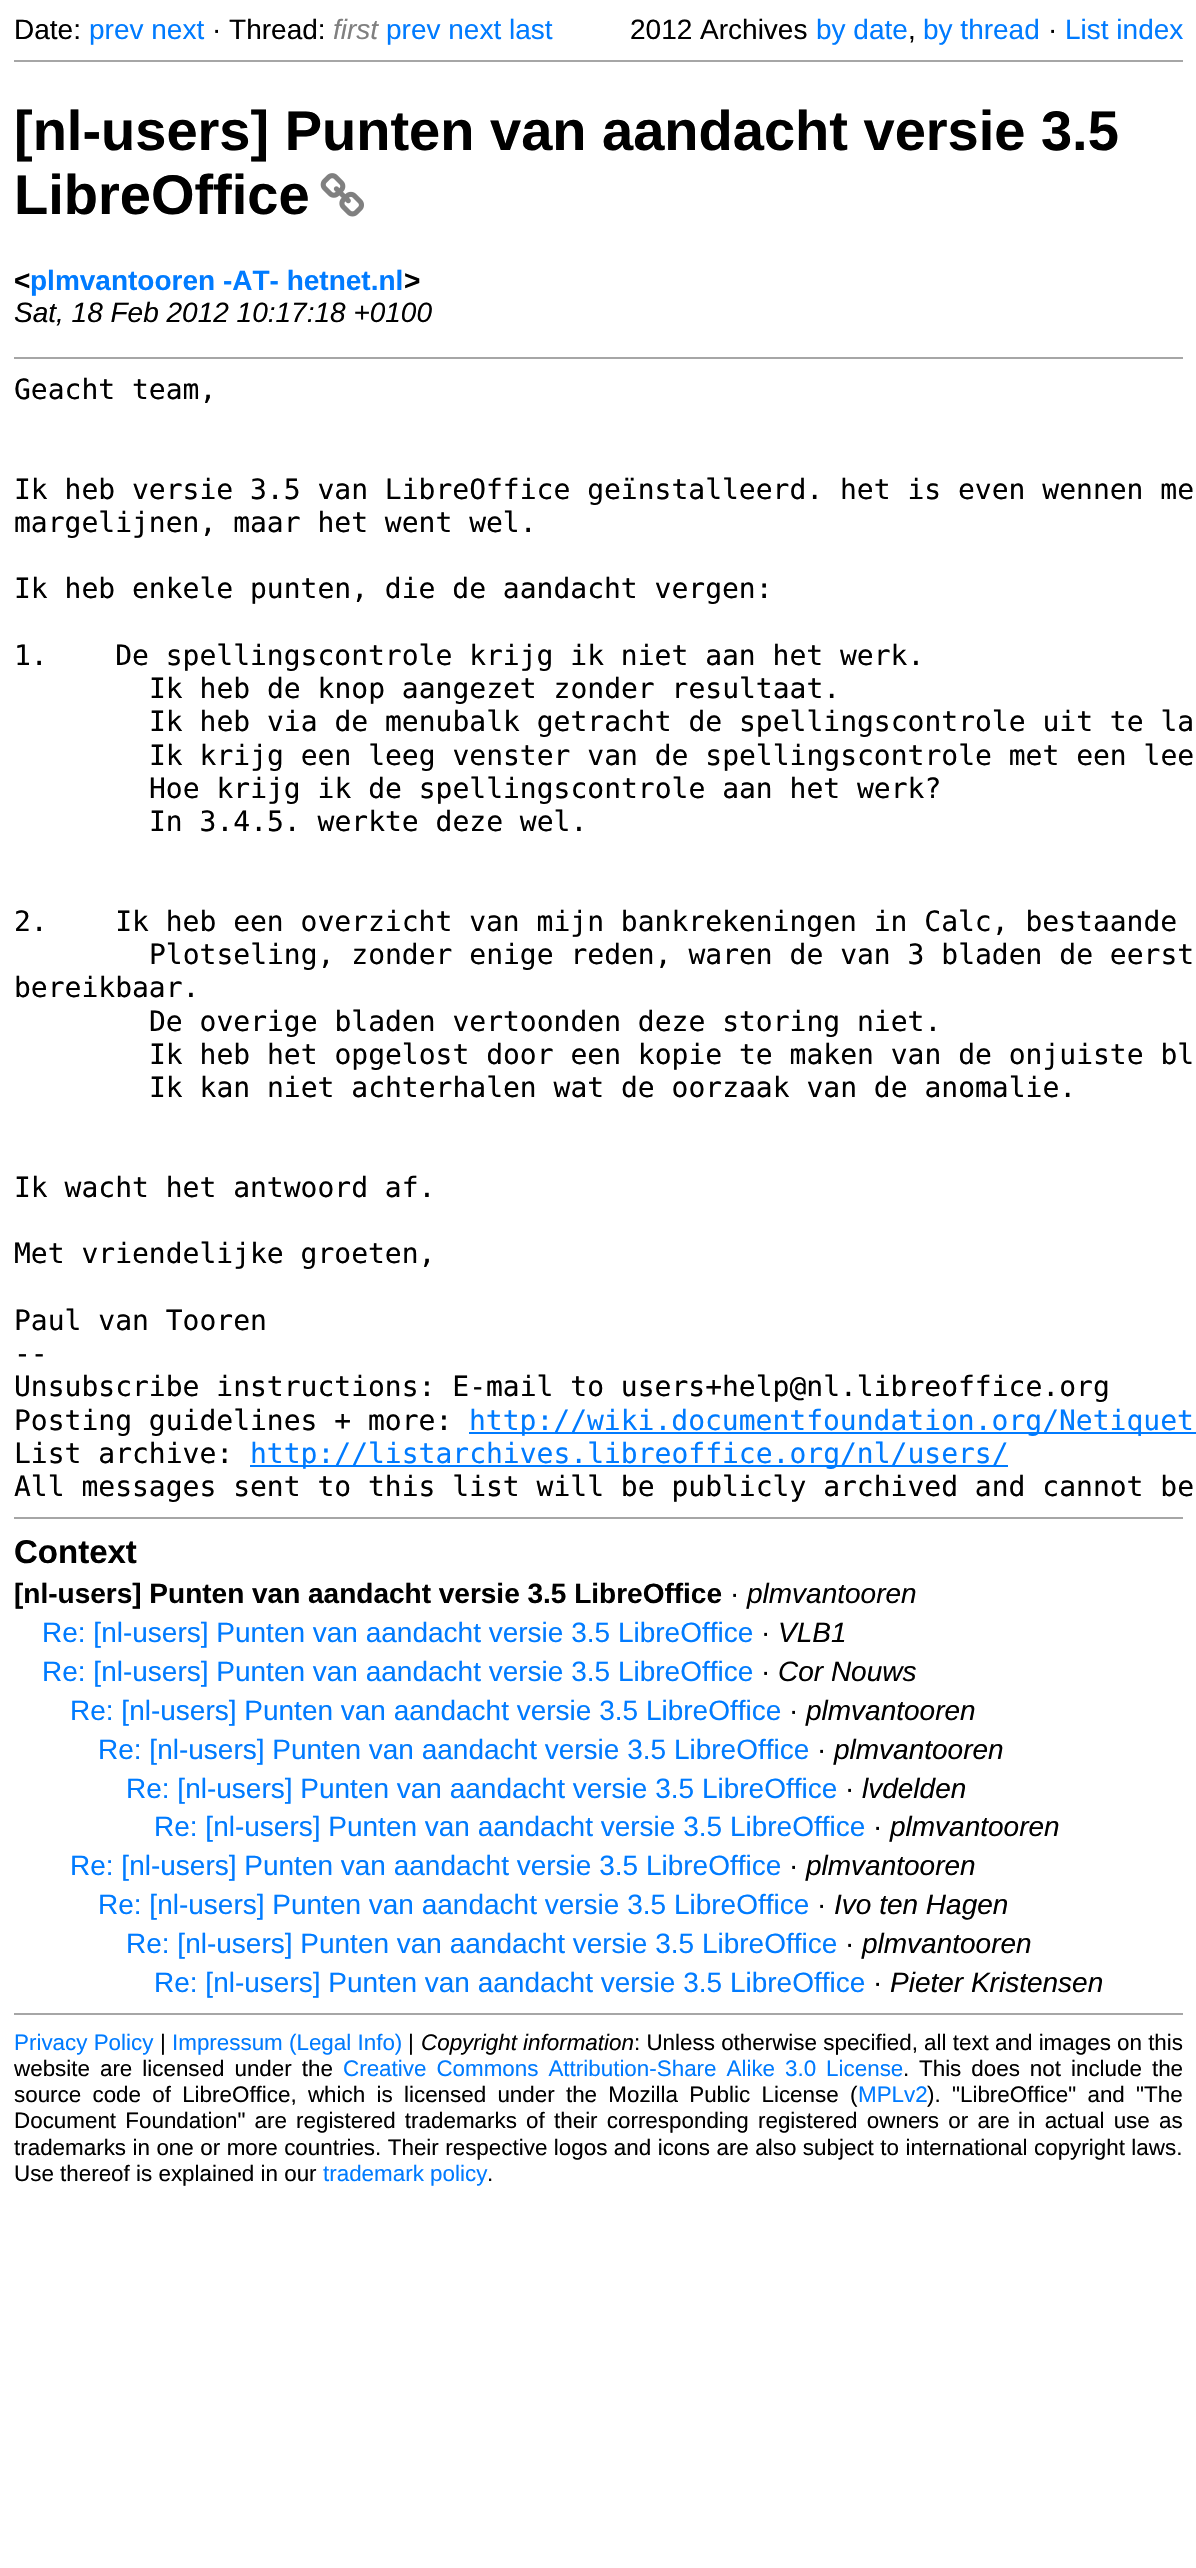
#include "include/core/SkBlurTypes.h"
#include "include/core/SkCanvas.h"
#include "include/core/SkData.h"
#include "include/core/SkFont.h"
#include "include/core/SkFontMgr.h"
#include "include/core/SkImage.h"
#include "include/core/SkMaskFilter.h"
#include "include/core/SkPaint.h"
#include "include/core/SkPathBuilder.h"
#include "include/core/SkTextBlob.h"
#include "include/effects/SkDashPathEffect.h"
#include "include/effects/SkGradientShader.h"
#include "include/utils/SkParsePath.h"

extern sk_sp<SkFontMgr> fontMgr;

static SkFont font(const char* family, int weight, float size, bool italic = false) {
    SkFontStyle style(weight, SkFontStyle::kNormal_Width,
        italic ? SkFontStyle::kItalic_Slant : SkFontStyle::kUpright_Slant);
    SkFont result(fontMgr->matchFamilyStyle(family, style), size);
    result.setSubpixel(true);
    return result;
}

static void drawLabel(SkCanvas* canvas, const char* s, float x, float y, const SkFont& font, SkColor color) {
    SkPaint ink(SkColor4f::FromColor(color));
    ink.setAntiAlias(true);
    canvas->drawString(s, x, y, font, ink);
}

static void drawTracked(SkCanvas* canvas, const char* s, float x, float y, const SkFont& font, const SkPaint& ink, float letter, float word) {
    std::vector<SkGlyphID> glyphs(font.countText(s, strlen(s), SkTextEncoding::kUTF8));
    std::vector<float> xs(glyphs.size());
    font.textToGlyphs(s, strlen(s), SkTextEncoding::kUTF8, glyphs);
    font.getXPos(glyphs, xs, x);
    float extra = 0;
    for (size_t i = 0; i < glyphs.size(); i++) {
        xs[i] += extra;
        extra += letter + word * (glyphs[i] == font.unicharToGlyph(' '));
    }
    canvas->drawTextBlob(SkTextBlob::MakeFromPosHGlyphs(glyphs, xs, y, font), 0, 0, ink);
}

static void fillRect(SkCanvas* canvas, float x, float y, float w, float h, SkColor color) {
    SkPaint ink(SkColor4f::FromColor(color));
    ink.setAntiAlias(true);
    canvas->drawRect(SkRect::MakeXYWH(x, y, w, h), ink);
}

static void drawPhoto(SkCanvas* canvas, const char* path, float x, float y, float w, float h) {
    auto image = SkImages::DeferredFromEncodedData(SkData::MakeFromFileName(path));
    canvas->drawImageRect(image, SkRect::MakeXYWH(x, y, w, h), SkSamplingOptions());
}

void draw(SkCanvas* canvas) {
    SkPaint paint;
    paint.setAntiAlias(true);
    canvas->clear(0xFFFFFFFF);
    SkFont font1 = font("Liberation Sans", 400, 28);
    drawLabel(canvas, "Date:", 14, 39, font1, 0xFF000000);
    drawLabel(canvas, "prev next", 89, 39, font1, 0xFF007BFF);
    drawLabel(canvas, "· Thread:", 212, 39, font1, 0xFF000000);
    SkFont font2 = font("Liberation Sans", 400, 28, true);
    drawLabel(canvas, "first", 333, 39, font2, 0xFF808080);
    drawLabel(canvas, "prev next last", 386, 39, font1, 0xFF007BFF);
    drawLabel(canvas, "2012 Archives", 630, 39, font1, 0xFF000000);
    drawLabel(canvas, "by date", 816, 39, font1, 0xFF007BFF);
    drawLabel(canvas, "by thread", 923, 39, font1, 0xFF007BFF);
    drawLabel(canvas, "·", 1048, 39, font1, 0xFF000000);
    drawLabel(canvas, "List index", 1065, 39, font1, 0xFF007BFF);
    drawLabel(canvas, ",", 908, 39, font1, 0xFF000000);
    fillRect(canvas, 14, 60, 1169, 2, 0xFFA6A6A6);
    SkFont font3 = font("Liberation Sans", 700, 56);
    drawLabel(canvas, "[nl-users] Punten van aandacht versie 3.5", 14, 150, font3, 0xFF000000);
    drawLabel(canvas, "LibreOffice", 14, 214, font3, 0xFF000000);
    drawPhoto(canvas, "assets/img1.png", 320, 173, 44, 44);
    SkFont font4 = font("Liberation Sans", 700, 28);
    drawLabel(canvas, "<", 14, 290, font4, 0xFF000000);
    drawLabel(canvas, "plmvantooren -AT- hetnet.nl", 30, 290, font4, 0xFF007BFF);
    drawLabel(canvas, ">", 404, 290, font4, 0xFF000000);
    drawLabel(canvas, "Sat, 18 Feb 2012 10:17:18 +0100", 14, 322, font2, 0xFF000000);
    fillRect(canvas, 14, 357, 1169, 2, 0xFFA6A6A6);
    SkFont font5 = font("DejaVu Sans Mono", 400, 28);
    drawLabel(canvas, "Geacht team,", 14, 399, font5, 0xFF000000);
    drawLabel(canvas, "Ik heb versie 3.5 van LibreOffice geïnstalleerd. het is even wennen me", 14, 499, font5, 0xFF000000);
    drawLabel(canvas, "margelijnen, maar het went wel.", 14, 532, font5, 0xFF000000);
    drawLabel(canvas, "Ik heb enkele punten, die de aandacht vergen:", 14, 598, font5, 0xFF000000);
    drawLabel(canvas, "1.    De spellingscontrole krijg ik niet aan het werk.", 14, 665, font5, 0xFF000000);
    drawLabel(canvas, "Ik heb de knop aangezet zonder resultaat.", 149, 698, font5, 0xFF000000);
    drawLabel(canvas, "Ik heb via de menubalk getracht de spellingscontrole uit te la", 149, 731, font5, 0xFF000000);
    drawLabel(canvas, "Ik krijg een leeg venster van de spellingscontrole met een lee", 149, 765, font5, 0xFF000000);
    drawLabel(canvas, "Hoe krijg ik de spellingscontrole aan het werk?", 149, 798, font5, 0xFF000000);
    drawLabel(canvas, "In 3.4.5. werkte deze wel.", 149, 831, font5, 0xFF000000);
    drawLabel(canvas, "2.    Ik heb een overzicht van mijn bankrekeningen in Calc, bestaande", 14, 931, font5, 0xFF000000);
    drawLabel(canvas, "Plotseling, zonder enige reden, waren de van 3 bladen de eerst", 149, 964, font5, 0xFF000000);
    drawLabel(canvas, "bereikbaar.", 14, 997, font5, 0xFF000000);
    drawLabel(canvas, "De overige bladen vertoonden deze storing niet.", 149, 1031, font5, 0xFF000000);
    drawLabel(canvas, "Ik heb het opgelost door een kopie te maken van de onjuiste bl", 149, 1064, font5, 0xFF000000);
    drawLabel(canvas, "Ik kan niet achterhalen wat de oorzaak van de anomalie.", 149, 1097, font5, 0xFF000000);
    drawLabel(canvas, "Ik wacht het antwoord af.", 14, 1197, font5, 0xFF000000);
    drawLabel(canvas, "Met vriendelijke groeten,", 14, 1263, font5, 0xFF000000);
    drawLabel(canvas, "Paul van Tooren", 14, 1330, font5, 0xFF000000);
    drawLabel(canvas, "--", 14, 1363, font5, 0xFF000000);
    drawLabel(canvas, "Unsubscribe instructions: E-mail to users+help@nl.libreoffice.org", 14, 1396, font5, 0xFF000000);
    drawLabel(canvas, "Posting guidelines + more:", 14, 1430, font5, 0xFF000000);
    fillRect(canvas, 469, 1432, 727, 2, 0xFF007BFF);
    drawLabel(canvas, "http://wiki.documentfoundation.org/Netiquet", 469, 1430, font5, 0xFF007BFF);
    drawLabel(canvas, "List archive:", 14, 1463, font5, 0xFF000000);
    fillRect(canvas, 250, 1465, 758, 2, 0xFF007BFF);
    drawLabel(canvas, "http://listarchives.libreoffice.org/nl/users/", 250, 1463, font5, 0xFF007BFF);
    drawLabel(canvas, "All messages sent to this list will be publicly archived and cannot be", 14, 1496, font5, 0xFF000000);
    fillRect(canvas, 14, 1517, 1169, 2, 0xFFA6A6A6);
    SkFont font6 = font("Liberation Sans", 700, 33);
    drawLabel(canvas, "Context", 14, 1563, font6, 0xFF000000);
    drawLabel(canvas, "[nl-users] Punten van aandacht versie 3.5 LibreOffice", 14, 1603, font4, 0xFF000000);
    drawLabel(canvas, "·", 730, 1603, font1, 0xFF000000);
    drawLabel(canvas, "plmvantooren", 747, 1603, font2, 0xFF000000);
    drawLabel(canvas, "Re: [nl-users] Punten van aandacht versie 3.5 LibreOffice", 42, 1642, font1, 0xFF007BFF);
    drawLabel(canvas, "·", 761, 1642, font1, 0xFF000000);
    drawLabel(canvas, "VLB1", 778, 1642, font2, 0xFF000000);
    drawLabel(canvas, "Re: [nl-users] Punten van aandacht versie 3.5 LibreOffice", 42, 1681, font1, 0xFF007BFF);
    drawLabel(canvas, "·", 761, 1681, font1, 0xFF000000);
    drawLabel(canvas, "Cor Nouws", 778, 1681, font2, 0xFF000000);
    drawLabel(canvas, "Re: [nl-users] Punten van aandacht versie 3.5 LibreOffice", 70, 1720, font1, 0xFF007BFF);
    drawLabel(canvas, "·", 789, 1720, font1, 0xFF000000);
    drawLabel(canvas, "plmvantooren", 806, 1720, font2, 0xFF000000);
    drawLabel(canvas, "Re: [nl-users] Punten van aandacht versie 3.5 LibreOffice", 98, 1759, font1, 0xFF007BFF);
    drawLabel(canvas, "·", 817, 1759, font1, 0xFF000000);
    drawLabel(canvas, "plmvantooren", 834, 1759, font2, 0xFF000000);
    drawLabel(canvas, "Re: [nl-users] Punten van aandacht versie 3.5 LibreOffice", 126, 1798, font1, 0xFF007BFF);
    drawLabel(canvas, "·", 845, 1798, font1, 0xFF000000);
    drawLabel(canvas, "lvdelden", 862, 1798, font2, 0xFF000000);
    drawLabel(canvas, "Re: [nl-users] Punten van aandacht versie 3.5 LibreOffice", 154, 1836, font1, 0xFF007BFF);
    drawLabel(canvas, "·", 873, 1836, font1, 0xFF000000);
    drawLabel(canvas, "plmvantooren", 890, 1836, font2, 0xFF000000);
    drawLabel(canvas, "Re: [nl-users] Punten van aandacht versie 3.5 LibreOffice", 70, 1875, font1, 0xFF007BFF);
    drawLabel(canvas, "·", 789, 1875, font1, 0xFF000000);
    drawLabel(canvas, "plmvantooren", 806, 1875, font2, 0xFF000000);
    drawLabel(canvas, "Re: [nl-users] Punten van aandacht versie 3.5 LibreOffice", 98, 1914, font1, 0xFF007BFF);
    drawLabel(canvas, "·", 817, 1914, font1, 0xFF000000);
    drawLabel(canvas, "Ivo ten Hagen", 834, 1914, font2, 0xFF000000);
    drawLabel(canvas, "Re: [nl-users] Punten van aandacht versie 3.5 LibreOffice", 126, 1953, font1, 0xFF007BFF);
    drawLabel(canvas, "·", 845, 1953, font1, 0xFF000000);
    drawLabel(canvas, "plmvantooren", 862, 1953, font2, 0xFF000000);
    drawLabel(canvas, "Re: [nl-users] Punten van aandacht versie 3.5 LibreOffice", 154, 1992, font1, 0xFF007BFF);
    drawLabel(canvas, "·", 873, 1992, font1, 0xFF000000);
    drawLabel(canvas, "Pieter Kristensen", 890, 1992, font2, 0xFF000000);
    fillRect(canvas, 14, 2013, 1169, 2, 0xFFA6A6A6);
    SkFont font7 = font("Liberation Sans", 400, 22.4f);
    drawLabel(canvas, "Privacy Policy", 14, 2050, font7, 0xFF007BFF);
    drawLabel(canvas, "|", 160, 2050, font7, 0xFF000000);
    drawLabel(canvas, "Impressum (Legal Info)", 172, 2050, font7, 0xFF007BFF);
    drawLabel(canvas, "|", 408, 2050, font7, 0xFF000000);
    SkFont font8 = font("Liberation Sans", 400, 22.4f, true);
    drawLabel(canvas, "Copyright information", 421, 2050, font8, 0xFF000000);
    drawLabel(canvas, ": Unless otherwise specified, all text and images", 634, 2050, font7, 0xFF000000);
    drawLabel(canvas, "on this", 1117, 2050, font7, 0xFF000000);
    paint.setColor(0xFF000000);
    drawTracked(canvas, "website are licensed under the", 14, 2076, font7, paint, 0, 3.75f);
    paint.setColor(0xFF007BFF);
    drawTracked(canvas, "Creative Commons Attribution-Share Alike 3.0 License", 343, 2076, font7, paint, 0, 3.75f);
    drawLabel(canvas, ".", 903, 2076, font7, 0xFF000000);
    paint.setColor(0xFF000000);
    drawTracked(canvas, "This does not include the", 919, 2076, font7, paint, 0, 3.75f);
    drawTracked(canvas, "source code of LibreOffice, which is", 14, 2102, font7, paint, 0, 5);
    drawTracked(canvas, "licensed under the Mozilla Public License (", 404, 2102, font7, paint, 0, 5);
    drawLabel(canvas, "MPLv2", 858, 2102, font7, 0xFF007BFF);
    drawLabel(canvas, ").", 927, 2102, font7, 0xFF000000);
    drawTracked(canvas, "\"LibreOffice\" and \"The", 952, 2102, font7, paint, 0, 5);
    drawTracked(canvas, "Document Foundation\" are", 14, 2128, font7, paint, 0, 3);
    drawTracked(canvas, "registered trademarks of their corresponding registered owners or are", 296, 2128, font7, paint, 0, 3);
    drawTracked(canvas, "in actual use as", 1018, 2128, font7, paint, 0, 3);
    drawTracked(canvas, "trademarks in one or more countries. Their respective logos and icons are also subject to international copyright laws.", 14, 2155, font7, paint, 0, 0.25f);
    drawLabel(canvas, "Use thereof is explained in our", 14, 2181, font7, 0xFF000000);
    drawLabel(canvas, "trademark policy", 323, 2181, font7, 0xFF007BFF);
    drawLabel(canvas, ".", 487, 2181, font7, 0xFF000000);
}
